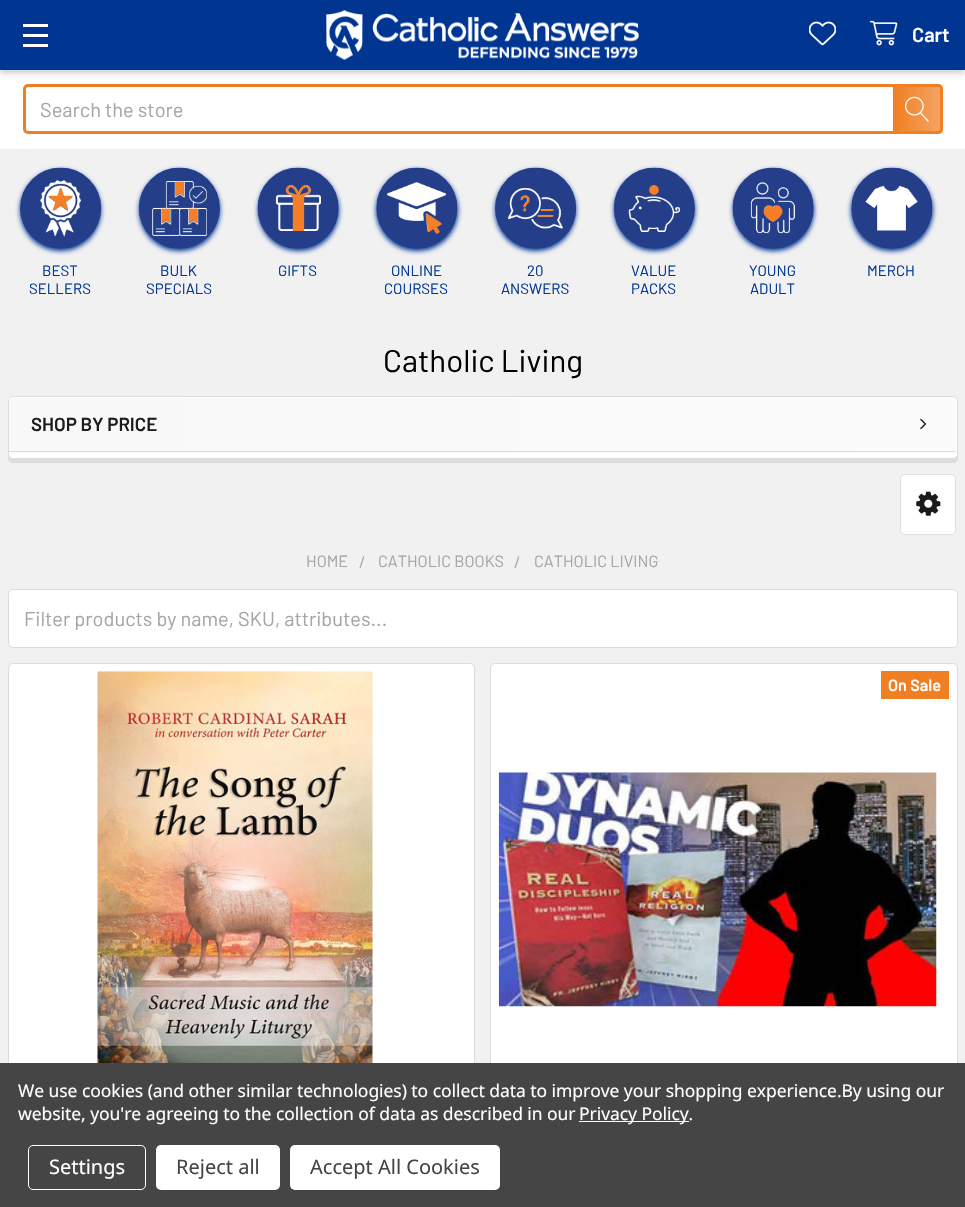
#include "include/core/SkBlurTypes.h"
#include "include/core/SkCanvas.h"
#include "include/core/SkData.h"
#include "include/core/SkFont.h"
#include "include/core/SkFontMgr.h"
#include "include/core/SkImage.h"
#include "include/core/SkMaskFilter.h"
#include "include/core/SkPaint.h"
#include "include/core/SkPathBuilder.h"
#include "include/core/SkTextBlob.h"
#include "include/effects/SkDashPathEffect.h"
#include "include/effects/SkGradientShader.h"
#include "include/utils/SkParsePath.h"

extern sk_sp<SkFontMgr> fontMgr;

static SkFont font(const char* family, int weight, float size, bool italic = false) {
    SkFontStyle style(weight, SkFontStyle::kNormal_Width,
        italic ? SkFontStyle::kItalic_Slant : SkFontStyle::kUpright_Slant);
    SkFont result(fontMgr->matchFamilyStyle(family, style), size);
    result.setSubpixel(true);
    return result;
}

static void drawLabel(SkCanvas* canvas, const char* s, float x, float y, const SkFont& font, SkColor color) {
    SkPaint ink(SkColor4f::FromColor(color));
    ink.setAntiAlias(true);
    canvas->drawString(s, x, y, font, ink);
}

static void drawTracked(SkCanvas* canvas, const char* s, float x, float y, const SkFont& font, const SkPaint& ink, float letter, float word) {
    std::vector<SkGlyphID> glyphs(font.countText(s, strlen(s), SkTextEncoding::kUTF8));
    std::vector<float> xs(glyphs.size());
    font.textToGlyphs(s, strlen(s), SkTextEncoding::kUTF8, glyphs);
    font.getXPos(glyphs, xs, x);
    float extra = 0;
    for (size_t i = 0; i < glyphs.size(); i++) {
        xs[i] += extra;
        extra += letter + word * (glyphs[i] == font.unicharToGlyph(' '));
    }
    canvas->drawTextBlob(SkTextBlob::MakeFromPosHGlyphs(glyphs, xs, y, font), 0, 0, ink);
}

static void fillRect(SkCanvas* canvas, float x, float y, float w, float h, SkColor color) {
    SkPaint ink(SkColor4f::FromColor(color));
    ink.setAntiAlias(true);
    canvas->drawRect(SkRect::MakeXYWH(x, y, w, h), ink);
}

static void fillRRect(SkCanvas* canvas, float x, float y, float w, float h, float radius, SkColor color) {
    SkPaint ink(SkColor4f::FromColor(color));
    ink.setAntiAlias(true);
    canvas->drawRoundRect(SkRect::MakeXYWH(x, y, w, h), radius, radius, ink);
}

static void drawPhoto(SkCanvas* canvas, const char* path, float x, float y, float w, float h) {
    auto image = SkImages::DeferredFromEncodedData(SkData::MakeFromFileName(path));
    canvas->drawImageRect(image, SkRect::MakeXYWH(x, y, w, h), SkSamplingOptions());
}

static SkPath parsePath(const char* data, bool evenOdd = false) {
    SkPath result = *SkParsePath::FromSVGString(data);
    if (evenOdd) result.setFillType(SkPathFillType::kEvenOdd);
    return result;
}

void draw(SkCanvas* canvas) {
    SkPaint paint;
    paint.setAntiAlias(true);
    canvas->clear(0xFFF1F1F2);
    fillRect(canvas, 0, 70, 965, 79, 0xFFFFFFFF);
    paint.setColor(0x33000000);
    paint.setMaskFilter(SkMaskFilter::MakeBlur(kNormal_SkBlurStyle, 3));
    canvas->drawRect(SkRect::MakeXYWH(0, 3, 965, 70), paint);
    paint.setMaskFilter(nullptr);
    fillRect(canvas, 0, 0, 965, 70, 0xFF003592);
    fillRect(canvas, 23, 34, 25, 3, 0xFFFFFFFF);
    fillRect(canvas, 23, 24, 25, 3, 0xFFFFFFFF);
    fillRect(canvas, 23, 44, 25, 3, 0xFFFFFFFF);
    drawPhoto(canvas, "assets/img1.png", 326, 10, 313, 50);
    drawPhoto(canvas, "assets/img2.png", 809, 21, 27, 25);
    drawPhoto(canvas, "assets/img3.png", 870, 20, 28, 26);
    SkFont font1 = font("Barlow", 600, 20);
    drawLabel(canvas, "Cart", 912, 42, font1, 0xFFFFFFFF);
    paint.setStroke(true);
    paint.setStrokeWidth(3);
    paint.setColor(0xFFF07F23);
    canvas->drawRoundRect(SkRect::MakeXYWH(24.5f, 85.5f, 917, 47), 3.5f, 3.5f, paint);
    SkFont font2 = font("Barlow", 400, 20);
    drawLabel(canvas, "Search the store", 40, 117, font2, 0xFFA5A5A5);
    paint.setStroke(false);
    {
        const SkColor colors[] = {0xFFF07F23, 0xB3F07F23};
        const float stops[] = {0, 1};
        const SkPoint ends[] = {{893, 109}, {943, 109}};
        paint.setShader(SkGradientShader::MakeLinear(ends, colors, stops, 2, SkTileMode::kClamp));
        paint.setAlpha(255);
    }
    canvas->drawPath(parsePath("M893 84H938C941 84 943 86 943 89V129C943 132 941 134 938 134H893Z"), paint);
    drawPhoto(canvas, "assets/img4.png", 905, 96, 24, 26);
    paint.setShader(nullptr);
    paint.setColor(0xFF003592);
    paint.setMaskFilter(SkMaskFilter::MakeBlur(kNormal_SkBlurStyle, 2.5f));
    canvas->drawRoundRect(SkRect::MakeXYWH(20, 170, 81, 81), 40.5f, 40.5f, paint);
    paint.setMaskFilter(nullptr);
    drawPhoto(canvas, "assets/img5.png", 20, 167, 82, 82);
    SkFont font3 = font("Barlow", 400, 15);
    drawLabel(canvas, "BEST", 42, 276, font3, 0xFF003592);
    drawLabel(canvas, "SELLERS", 29, 294, font3, 0xFF003592);
    paint.setMaskFilter(SkMaskFilter::MakeBlur(kNormal_SkBlurStyle, 2.5f));
    canvas->drawRoundRect(SkRect::MakeXYWH(139, 170, 81, 81), 40.5f, 40.5f, paint);
    paint.setMaskFilter(nullptr);
    drawPhoto(canvas, "assets/img6.png", 138, 167, 82, 82);
    drawLabel(canvas, "BULK", 160, 276, font3, 0xFF003592);
    drawLabel(canvas, "SPECIALS", 146, 294, font3, 0xFF003592);
    paint.setMaskFilter(SkMaskFilter::MakeBlur(kNormal_SkBlurStyle, 2.5f));
    canvas->drawRoundRect(SkRect::MakeXYWH(258, 170, 81, 81), 40.5f, 40.5f, paint);
    paint.setMaskFilter(nullptr);
    drawPhoto(canvas, "assets/img7.png", 257, 167, 82, 82);
    drawLabel(canvas, "GIFTS", 278, 276, font3, 0xFF003592);
    paint.setMaskFilter(SkMaskFilter::MakeBlur(kNormal_SkBlurStyle, 2.5f));
    canvas->drawRoundRect(SkRect::MakeXYWH(376, 170, 82, 81), 40.5f, 40.5f, paint);
    paint.setMaskFilter(nullptr);
    drawPhoto(canvas, "assets/img8.png", 376, 167, 82, 82);
    drawLabel(canvas, "ONLINE", 391, 276, font3, 0xFF003592);
    drawLabel(canvas, "COURSES", 384, 294, font3, 0xFF003592);
    paint.setMaskFilter(SkMaskFilter::MakeBlur(kNormal_SkBlurStyle, 2.5f));
    canvas->drawRoundRect(SkRect::MakeXYWH(495, 170, 81, 81), 40.5f, 40.5f, paint);
    paint.setMaskFilter(nullptr);
    drawPhoto(canvas, "assets/img9.png", 495, 167, 82, 82);
    drawLabel(canvas, "20", 527, 276, font3, 0xFF003592);
    drawLabel(canvas, "ANSWERS", 501, 294, font3, 0xFF003592);
    paint.setMaskFilter(SkMaskFilter::MakeBlur(kNormal_SkBlurStyle, 2.5f));
    canvas->drawRoundRect(SkRect::MakeXYWH(614, 170, 81, 81), 40.5f, 40.5f, paint);
    paint.setMaskFilter(nullptr);
    drawPhoto(canvas, "assets/img10.png", 613, 167, 82, 82);
    drawLabel(canvas, "VALUE", 631, 276, font3, 0xFF003592);
    drawLabel(canvas, "PACKS", 631, 294, font3, 0xFF003592);
    paint.setMaskFilter(SkMaskFilter::MakeBlur(kNormal_SkBlurStyle, 2.5f));
    canvas->drawRoundRect(SkRect::MakeXYWH(733, 170, 81, 81), 40.5f, 40.5f, paint);
    paint.setMaskFilter(nullptr);
    drawPhoto(canvas, "assets/img11.png", 732, 167, 82, 82);
    drawLabel(canvas, "YOUNG", 749, 276, font3, 0xFF003592);
    drawLabel(canvas, "ADULT", 750, 294, font3, 0xFF003592);
    paint.setMaskFilter(SkMaskFilter::MakeBlur(kNormal_SkBlurStyle, 2.5f));
    canvas->drawRoundRect(SkRect::MakeXYWH(851, 170, 82, 81), 40.5f, 40.5f, paint);
    paint.setMaskFilter(nullptr);
    drawPhoto(canvas, "assets/img12.png", 851, 167, 82, 82);
    drawLabel(canvas, "MERCH", 867, 276, font3, 0xFF003592);
    SkFont font4 = font("Barlow", 400, 31.25f);
    drawLabel(canvas, "Catholic Living", 383, 372, font4, 0xFF000000);
    paint.setColor(0xFFDCDCDC);
    canvas->drawPath(parsePath("M8 456V458C8 461 10 463 13 463H953C956 463 958 461 958 458V405V403V454C958 457 955 459 952 459H12C11 459 9 458 8 456Z"), paint);
    paint.setColor(0xFFFFFFFF);
    canvas->drawRoundRect(SkRect::MakeXYWH(8.5f, 396.5f, 949, 62), 4.5f, 4.5f, paint);
    paint.setStroke(true);
    paint.setStrokeWidth(1);
    paint.setColor(0xFFDCDCDC);
    canvas->drawRoundRect(SkRect::MakeXYWH(8.5f, 396.5f, 949, 62), 4.5f, 4.5f, paint);
    paint.setStroke(false);
    {
        const SkColor colors[] = {0xFFF8F8F8, 0x99F8F8F8};
        const float stops[] = {0, 1};
        const SkPoint ends[] = {{9, 424}, {956, 424}};
        paint.setShader(SkGradientShader::MakeLinear(ends, colors, stops, 2, SkTileMode::kClamp));
        paint.setAlpha(255);
    }
    canvas->drawRect(SkRect::MakeXYWH(9, 398, 947, 55), paint);
    fillRect(canvas, 9, 451, 947, 1, 0xFFDCDCDC);
    SkFont font5 = font("Barlow", 600, 18.75f);
    drawLabel(canvas, "SHOP BY PRICE", 31, 431, font5, 0xFF1D1D1D);
    drawPhoto(canvas, "assets/img13.png", 920, 418, 7, 12);
    paint.setShader(nullptr);
    paint.setColor(0xFFFFFFFF);
    canvas->drawRoundRect(SkRect::MakeXYWH(900.5f, 474.5f, 55, 60), 4.5f, 4.5f, paint);
    paint.setStroke(true);
    paint.setColor(0xFFE0E1E4);
    canvas->drawRoundRect(SkRect::MakeXYWH(900.5f, 474.5f, 55, 60), 4.5f, 4.5f, paint);
    drawPhoto(canvas, "assets/img14.png", 916, 491, 25, 25);
    SkFont font6 = font("Barlow", 400, 16.25f);
    drawLabel(canvas, "HOME", 306, 567, font6, 0xFFA5A5A5);
    drawLabel(canvas, "/", 359, 568, font6, 0xFFA5A5A5);
    drawLabel(canvas, "CATHOLIC BOOKS", 378, 567, font6, 0xFFA5A5A5);
    drawLabel(canvas, "/", 514, 568, font6, 0xFFA5A5A5);
    drawLabel(canvas, "CATHOLIC LIVING", 534, 567, font6, 0xFFA5A5A5);
    paint.setStroke(false);
    paint.setColor(0xFFFFFFFF);
    canvas->drawRoundRect(SkRect::MakeXYWH(8.5f, 589.5f, 949, 58), 4.5f, 4.5f, paint);
    paint.setStroke(true);
    paint.setColor(0xFFDCDCDC);
    canvas->drawRoundRect(SkRect::MakeXYWH(8.5f, 589.5f, 949, 58), 4.5f, 4.5f, paint);
    fillRRect(canvas, 9, 590, 947, 56, 5, 0xFFFFFFFF);
    drawLabel(canvas, "Filter products by name, SKU, attributes...", 24, 626, font2, 0xFFA5A5A5);
    paint.setStroke(false);
    paint.setColor(0xFFFFFFFF);
    canvas->drawRoundRect(SkRect::MakeXYWH(8.5f, 663.5f, 466, 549), 4.5f, 4.5f, paint);
    paint.setStroke(true);
    paint.setColor(0xFFDCDCDC);
    canvas->drawRoundRect(SkRect::MakeXYWH(8.5f, 663.5f, 466, 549), 4.5f, 4.5f, paint);
    drawPhoto(canvas, "assets/img15.png", 97, 671, 276, 392);
    paint.setStroke(false);
    paint.setColor(0xFFFFFFFF);
    canvas->drawRoundRect(SkRect::MakeXYWH(490.5f, 663.5f, 467, 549), 4.5f, 4.5f, paint);
    paint.setStroke(true);
    paint.setColor(0xFFDCDCDC);
    canvas->drawRoundRect(SkRect::MakeXYWH(490.5f, 663.5f, 467, 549), 4.5f, 4.5f, paint);
    fillRect(canvas, 881, 671, 68, 28, 0xFFF07F23);
    SkFont font7 = font("Barlow", 600, 16.25f);
    drawLabel(canvas, "On Sale", 888, 691, font7, 0xFFFFFFFF);
    drawPhoto(canvas, "assets/img16.png", 498, 772, 439, 235);
    fillRect(canvas, 0, 1063, 965, 144, 0xFF454545);
    SkFont font8 = font("Noto Sans", 400, 17.5f);
    paint.setStroke(false);
    paint.setColor(0xFFFFFFFF);
    drawTracked(canvas, "We use cookies (and other similar technologies) to collect data to improve your shopping experience.By using our", 18, 1097, font8, paint, -0.06f, 0);
    drawTracked(canvas, "website, you're agreeing to the collection of data as described in our", 18, 1120, font8, paint, -0.06f, 0);
    fillRect(canvas, 579, 1121, 110, 1, 0xFFFFFFFF);
    drawTracked(canvas, "Privacy Policy.", 579, 1120, font8, paint, -0.06f, 0);
    paint.setStroke(true);
    canvas->drawRoundRect(SkRect::MakeXYWH(28.5f, 1145.5f, 117, 44), 4.5f, 4.5f, paint);
    SkFont font9 = font("Noto Sans", 400, 20);
    drawLabel(canvas, "Settings", 49, 1174, font9, 0xFFFFFFFF);
    fillRRect(canvas, 156, 1145, 124, 45, 5, 0xFFFFFFFF);
    drawLabel(canvas, "Reject all", 176, 1174, font9, 0xFF454545);
    fillRRect(canvas, 290, 1145, 210, 45, 5, 0xFFFFFFFF);
    drawLabel(canvas, "Accept All Cookies", 310, 1174, font9, 0xFF454545);
}
